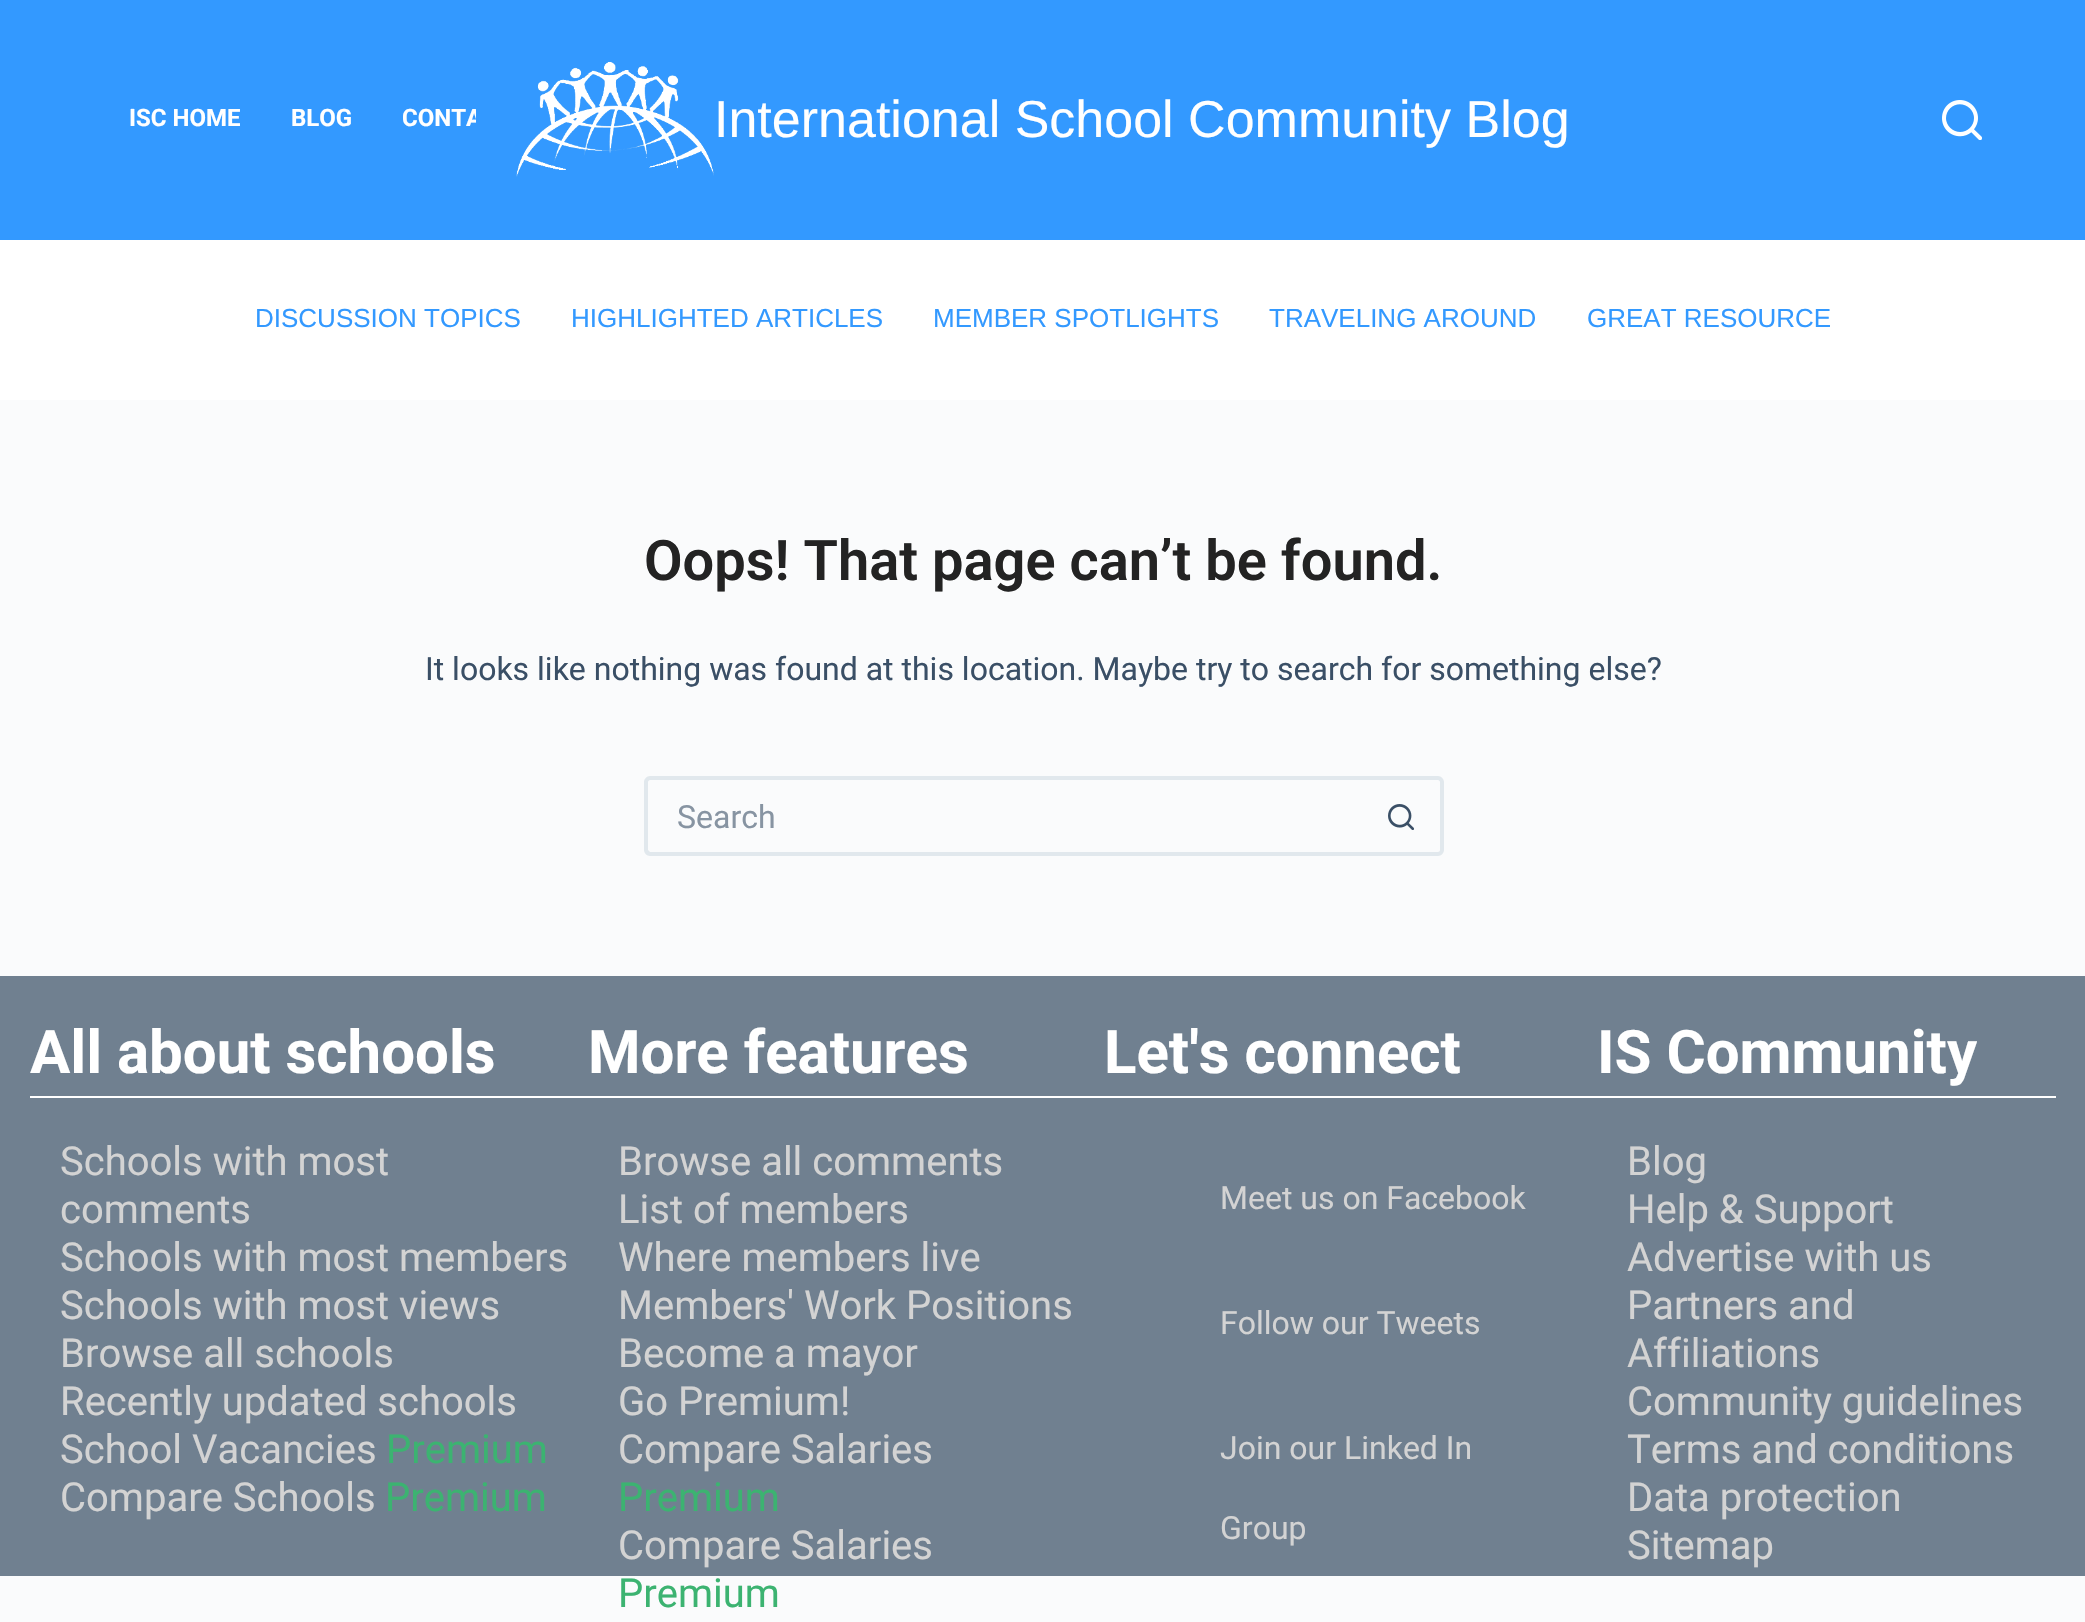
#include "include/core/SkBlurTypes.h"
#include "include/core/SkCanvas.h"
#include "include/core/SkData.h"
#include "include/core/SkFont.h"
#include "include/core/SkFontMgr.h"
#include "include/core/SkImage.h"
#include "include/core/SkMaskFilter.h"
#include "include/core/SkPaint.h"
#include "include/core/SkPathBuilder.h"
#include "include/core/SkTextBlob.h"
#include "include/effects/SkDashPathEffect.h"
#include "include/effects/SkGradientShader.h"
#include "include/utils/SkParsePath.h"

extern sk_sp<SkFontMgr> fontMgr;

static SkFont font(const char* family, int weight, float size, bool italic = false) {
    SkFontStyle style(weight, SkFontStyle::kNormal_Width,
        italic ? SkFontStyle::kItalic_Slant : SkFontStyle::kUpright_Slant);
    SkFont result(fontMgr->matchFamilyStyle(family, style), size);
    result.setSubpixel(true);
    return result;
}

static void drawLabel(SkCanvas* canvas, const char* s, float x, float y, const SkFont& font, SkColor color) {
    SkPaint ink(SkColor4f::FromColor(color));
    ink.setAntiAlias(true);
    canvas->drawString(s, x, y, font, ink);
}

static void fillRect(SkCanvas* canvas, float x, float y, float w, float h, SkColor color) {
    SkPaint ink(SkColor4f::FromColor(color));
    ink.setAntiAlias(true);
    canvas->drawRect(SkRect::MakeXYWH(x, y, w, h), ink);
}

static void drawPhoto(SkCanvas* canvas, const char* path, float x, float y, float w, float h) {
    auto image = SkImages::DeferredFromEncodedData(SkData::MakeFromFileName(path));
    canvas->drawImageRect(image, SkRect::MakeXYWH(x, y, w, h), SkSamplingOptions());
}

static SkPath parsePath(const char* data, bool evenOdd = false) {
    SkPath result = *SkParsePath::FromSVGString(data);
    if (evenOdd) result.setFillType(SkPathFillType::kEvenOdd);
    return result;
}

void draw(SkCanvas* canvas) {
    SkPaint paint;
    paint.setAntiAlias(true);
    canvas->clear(0xFFFAFBFC);
    fillRect(canvas, 0, 0, 2085, 240, 0xFF3399FF);
    SkFont font1 = font("Roboto", 700, 24);
    drawLabel(canvas, "ISC HOME", 129, 126, font1, 0xFFFFFFFF);
    drawLabel(canvas, "BLOG", 291, 126, font1, 0xFFFFFFFF);
    canvas->save();
    canvas->clipRect(SkRect::MakeXYWH(104, 0, 372, 240));
    drawLabel(canvas, "CONTA", 402, 126, font1, 0xFFFFFFFF);
    canvas->restore();
    drawPhoto(canvas, "assets/img1.png", 516, 62, 198, 115);
    SkFont font2 = font("Liberation Sans", 400, 52);
    drawLabel(canvas, "International School Community Blog", 714, 137, font2, 0xFFFFFFFF);
    drawPhoto(canvas, "assets/img2.png", 1942, 100, 40, 40);
    fillRect(canvas, 0, 240, 2085, 160, 0xFFFFFFFF);
    SkFont font3 = font("Liberation Sans", 400, 26);
    drawLabel(canvas, "DISCUSSION TOPICS", 255, 327, font3, 0xFF3399FF);
    drawLabel(canvas, "HIGHLIGHTED ARTICLES", 571, 327, font3, 0xFF3399FF);
    drawLabel(canvas, "MEMBER SPOTLIGHTS", 933, 327, font3, 0xFF3399FF);
    drawLabel(canvas, "TRAVELING AROUND", 1269, 327, font3, 0xFF3399FF);
    drawLabel(canvas, "GREAT RESOURCE", 1587, 327, font3, 0xFF3399FF);
    SkFont font4 = font("Roboto", 600, 56);
    drawLabel(canvas, "Oops! That page can’t be found.", 644, 580, font4, 0xFF232323);
    SkFont font5 = font("Roboto", 400, 32);
    drawLabel(canvas, "It looks like nothing was found at this location. Maybe try to search for something else?", 425, 680, font5, 0xFF3A4F66);
    paint.setColor(0xFFE1E8ED);
    canvas->drawPath(parsePath("M650 776H1364V856H650C647 856 644 853 644 850V782C644 779 647 776 650 776ZM650 780H1364V852H650L648 850V782C648 781 649 780 650 780Z", true), paint);
    drawLabel(canvas, "Search", 677, 828, font5, 0xFF8794A2);
    canvas->drawPath(parsePath("M1364 776H1438C1441 776 1444 779 1444 782V850C1444 853 1441 856 1438 856H1364ZM1364 780H1438C1439 780 1440 781 1440 782V850C1440 851 1439 852 1438 852H1364Z", true), paint);
    drawPhoto(canvas, "assets/img3.png", 1388, 804, 26, 26);
    fillRect(canvas, 0, 976, 2085, 600, 0xFF708090);
    fillRect(canvas, 30, 1096, 2026, 2, 0xFFFFFFFF);
    SkFont font6 = font("Roboto", 700, 60);
    drawLabel(canvas, "All about schools", 30, 1073, font6, 0xFFFFFFFF);
    SkFont font7 = font("Roboto", 400, 40);
    drawLabel(canvas, "Schools with most", 60, 1175, font7, 0xFFD3D3D3);
    drawLabel(canvas, "comments", 60, 1223, font7, 0xFFD3D3D3);
    drawLabel(canvas, "Schools with most members", 60, 1271, font7, 0xFFD3D3D3);
    drawLabel(canvas, "Schools with most views", 60, 1319, font7, 0xFFD3D3D3);
    drawLabel(canvas, "Browse all schools", 60, 1367, font7, 0xFFD3D3D3);
    drawLabel(canvas, "Recently updated schools", 60, 1415, font7, 0xFFD3D3D3);
    drawLabel(canvas, "School Vacancies", 60, 1463, font7, 0xFFD3D3D3);
    drawLabel(canvas, "Premium", 386, 1463, font7, 0xFF3CB371);
    drawLabel(canvas, "Compare Schools", 60, 1511, font7, 0xFFD3D3D3);
    drawLabel(canvas, "Premium", 385, 1511, font7, 0xFF3CB371);
    drawLabel(canvas, "More features", 588, 1073, font6, 0xFFFFFFFF);
    drawLabel(canvas, "Browse all comments", 618, 1175, font7, 0xFFD3D3D3);
    drawLabel(canvas, "List of members", 618, 1223, font7, 0xFFD3D3D3);
    drawLabel(canvas, "Where members live", 618, 1271, font7, 0xFFD3D3D3);
    drawLabel(canvas, "Members' Work Positions", 618, 1319, font7, 0xFFD3D3D3);
    drawLabel(canvas, "Become a mayor", 618, 1367, font7, 0xFFD3D3D3);
    drawLabel(canvas, "Go Premium!", 618, 1415, font7, 0xFFD3D3D3);
    drawLabel(canvas, "Compare Salaries", 618, 1463, font7, 0xFFD3D3D3);
    drawLabel(canvas, "Premium", 618, 1511, font7, 0xFF3CB371);
    drawLabel(canvas, "Compare Salaries", 618, 1559, font7, 0xFFD3D3D3);
    drawLabel(canvas, "Premium", 618, 1607, font7, 0xFF3CB371);
    drawLabel(canvas, "Let's connect", 1104, 1073, font6, 0xFFFFFFFF);
    drawLabel(canvas, "Meet us on Facebook", 1220, 1209, font5, 0xFFD3D3D3);
    drawLabel(canvas, "Follow our Tweets", 1220, 1334, font5, 0xFFD3D3D3);
    drawLabel(canvas, "Join our Linked In", 1220, 1459, font5, 0xFFD3D3D3);
    drawLabel(canvas, "Group", 1220, 1539, font5, 0xFFD3D3D3);
    drawLabel(canvas, "IS Community", 1597, 1073, font6, 0xFFFFFFFF);
    drawLabel(canvas, "Blog", 1627, 1175, font7, 0xFFD3D3D3);
    drawLabel(canvas, "Help & Support", 1627, 1223, font7, 0xFFD3D3D3);
    drawLabel(canvas, "Advertise with us", 1627, 1271, font7, 0xFFD3D3D3);
    drawLabel(canvas, "Partners and", 1627, 1319, font7, 0xFFD3D3D3);
    drawLabel(canvas, "Affiliations", 1627, 1367, font7, 0xFFD3D3D3);
    drawLabel(canvas, "Community guidelines", 1627, 1415, font7, 0xFFD3D3D3);
    drawLabel(canvas, "Terms and conditions", 1627, 1463, font7, 0xFFD3D3D3);
    drawLabel(canvas, "Data protection", 1627, 1511, font7, 0xFFD3D3D3);
    drawLabel(canvas, "Sitemap", 1627, 1559, font7, 0xFFD3D3D3);
}
